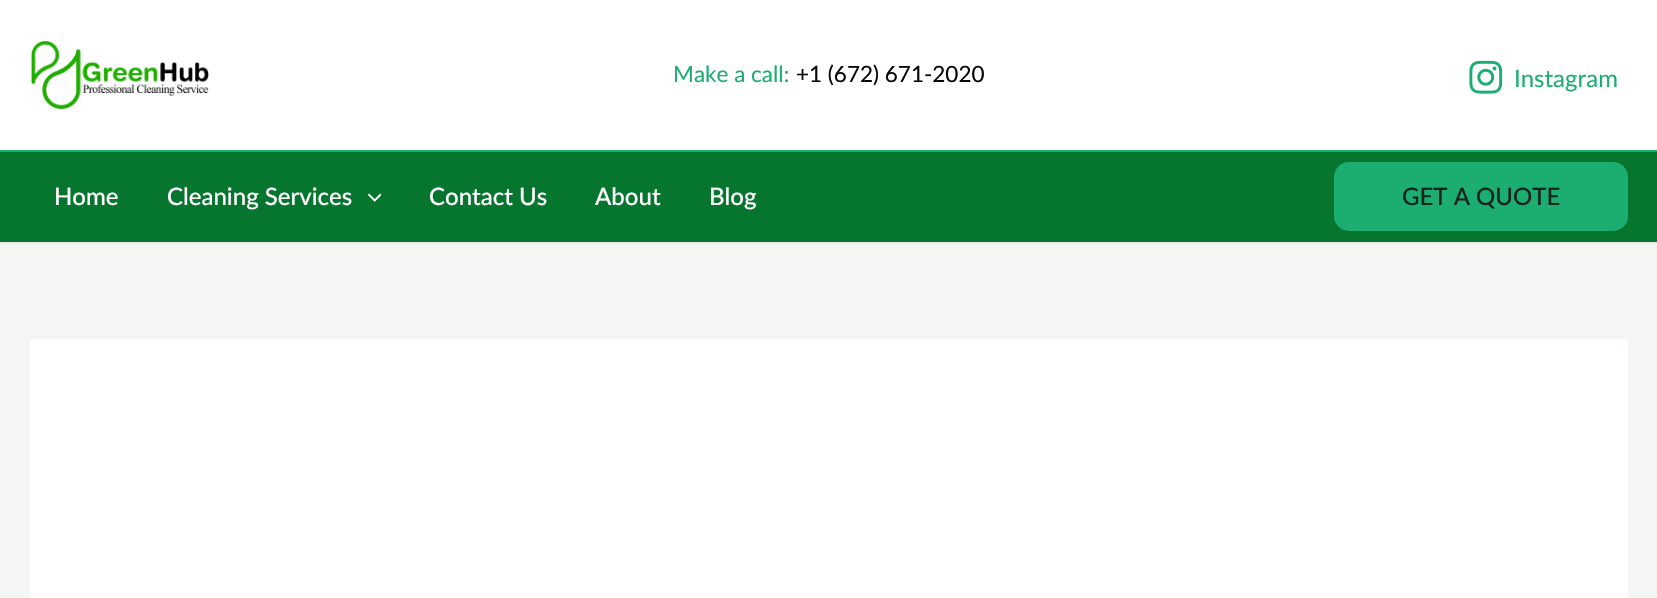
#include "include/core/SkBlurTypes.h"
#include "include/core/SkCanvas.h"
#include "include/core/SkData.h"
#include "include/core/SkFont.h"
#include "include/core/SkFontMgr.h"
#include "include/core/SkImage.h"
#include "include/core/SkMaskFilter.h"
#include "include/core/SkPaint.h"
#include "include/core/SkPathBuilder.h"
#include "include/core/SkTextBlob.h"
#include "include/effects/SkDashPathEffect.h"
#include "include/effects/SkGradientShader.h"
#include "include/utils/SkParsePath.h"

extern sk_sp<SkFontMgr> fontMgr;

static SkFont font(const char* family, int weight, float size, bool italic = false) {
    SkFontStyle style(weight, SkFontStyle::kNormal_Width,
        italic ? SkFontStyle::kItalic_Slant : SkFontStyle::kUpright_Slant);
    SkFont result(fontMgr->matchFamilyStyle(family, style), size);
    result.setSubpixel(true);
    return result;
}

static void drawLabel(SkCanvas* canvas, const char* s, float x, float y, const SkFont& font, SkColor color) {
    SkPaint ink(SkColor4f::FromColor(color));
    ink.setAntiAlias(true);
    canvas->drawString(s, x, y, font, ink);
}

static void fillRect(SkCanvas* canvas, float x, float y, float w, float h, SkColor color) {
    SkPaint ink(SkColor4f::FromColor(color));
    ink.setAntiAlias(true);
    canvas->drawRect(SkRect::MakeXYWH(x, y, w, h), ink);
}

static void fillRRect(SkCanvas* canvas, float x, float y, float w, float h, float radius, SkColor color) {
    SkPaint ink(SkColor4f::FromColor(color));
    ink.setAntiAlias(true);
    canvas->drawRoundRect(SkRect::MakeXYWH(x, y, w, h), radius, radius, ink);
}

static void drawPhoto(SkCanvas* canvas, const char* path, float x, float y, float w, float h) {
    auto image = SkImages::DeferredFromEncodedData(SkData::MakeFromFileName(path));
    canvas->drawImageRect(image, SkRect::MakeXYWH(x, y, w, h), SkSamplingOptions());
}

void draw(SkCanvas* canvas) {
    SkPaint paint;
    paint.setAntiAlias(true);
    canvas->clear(0xFFF4F6F4);
    fillRect(canvas, 0, 0, 1657, 150, 0xFFFFFFFF);
    fillRect(canvas, 0, 150, 1657, 2, 0xFF1BAE70);
    drawPhoto(canvas, "assets/img1.png", 31, 41, 178, 68);
    SkFont font1 = font("Lato", 400, 22.5f);
    drawLabel(canvas, "Make a call:", 673, 82, font1, 0xFF1BAE70);
    drawLabel(canvas, "+1 (672) 671-2020", 796, 82, font1, 0xFF060606);
    drawPhoto(canvas, "assets/img2.png", 1469, 60, 34, 34);
    SkFont font2 = font("Lato", 400, 24);
    drawLabel(canvas, "Instagram", 1514, 87, font2, 0xFF1BAE70);
    fillRect(canvas, 0, 152, 1657, 90, 0xFF06752E);
    fillRect(canvas, 0, 242, 1657, 2, 0xFFEAEAEA);
    SkFont font3 = font("Lato", 500, 24);
    drawLabel(canvas, "Home", 54, 205, font3, 0xFFFFFFFF);
    drawLabel(canvas, "Cleaning Services", 167, 205, font3, 0xFFFFFFFF);
    drawPhoto(canvas, "assets/img3.png", 368, 193, 13, 9);
    drawLabel(canvas, "Contact Us", 429, 205, font3, 0xFFFFFFFF);
    drawLabel(canvas, "About", 595, 205, font3, 0xFFFFFFFF);
    drawLabel(canvas, "Blog", 709, 205, font3, 0xFFFFFFFF);
    fillRRect(canvas, 1334, 162, 294, 69, 15, 0xFF1BAE70);
    drawLabel(canvas, "GET A QUOTE", 1402, 205, font3, 0xFF14261C);
    fillRect(canvas, 30, 339, 1598, 259, 0xFFFFFFFF);
}
